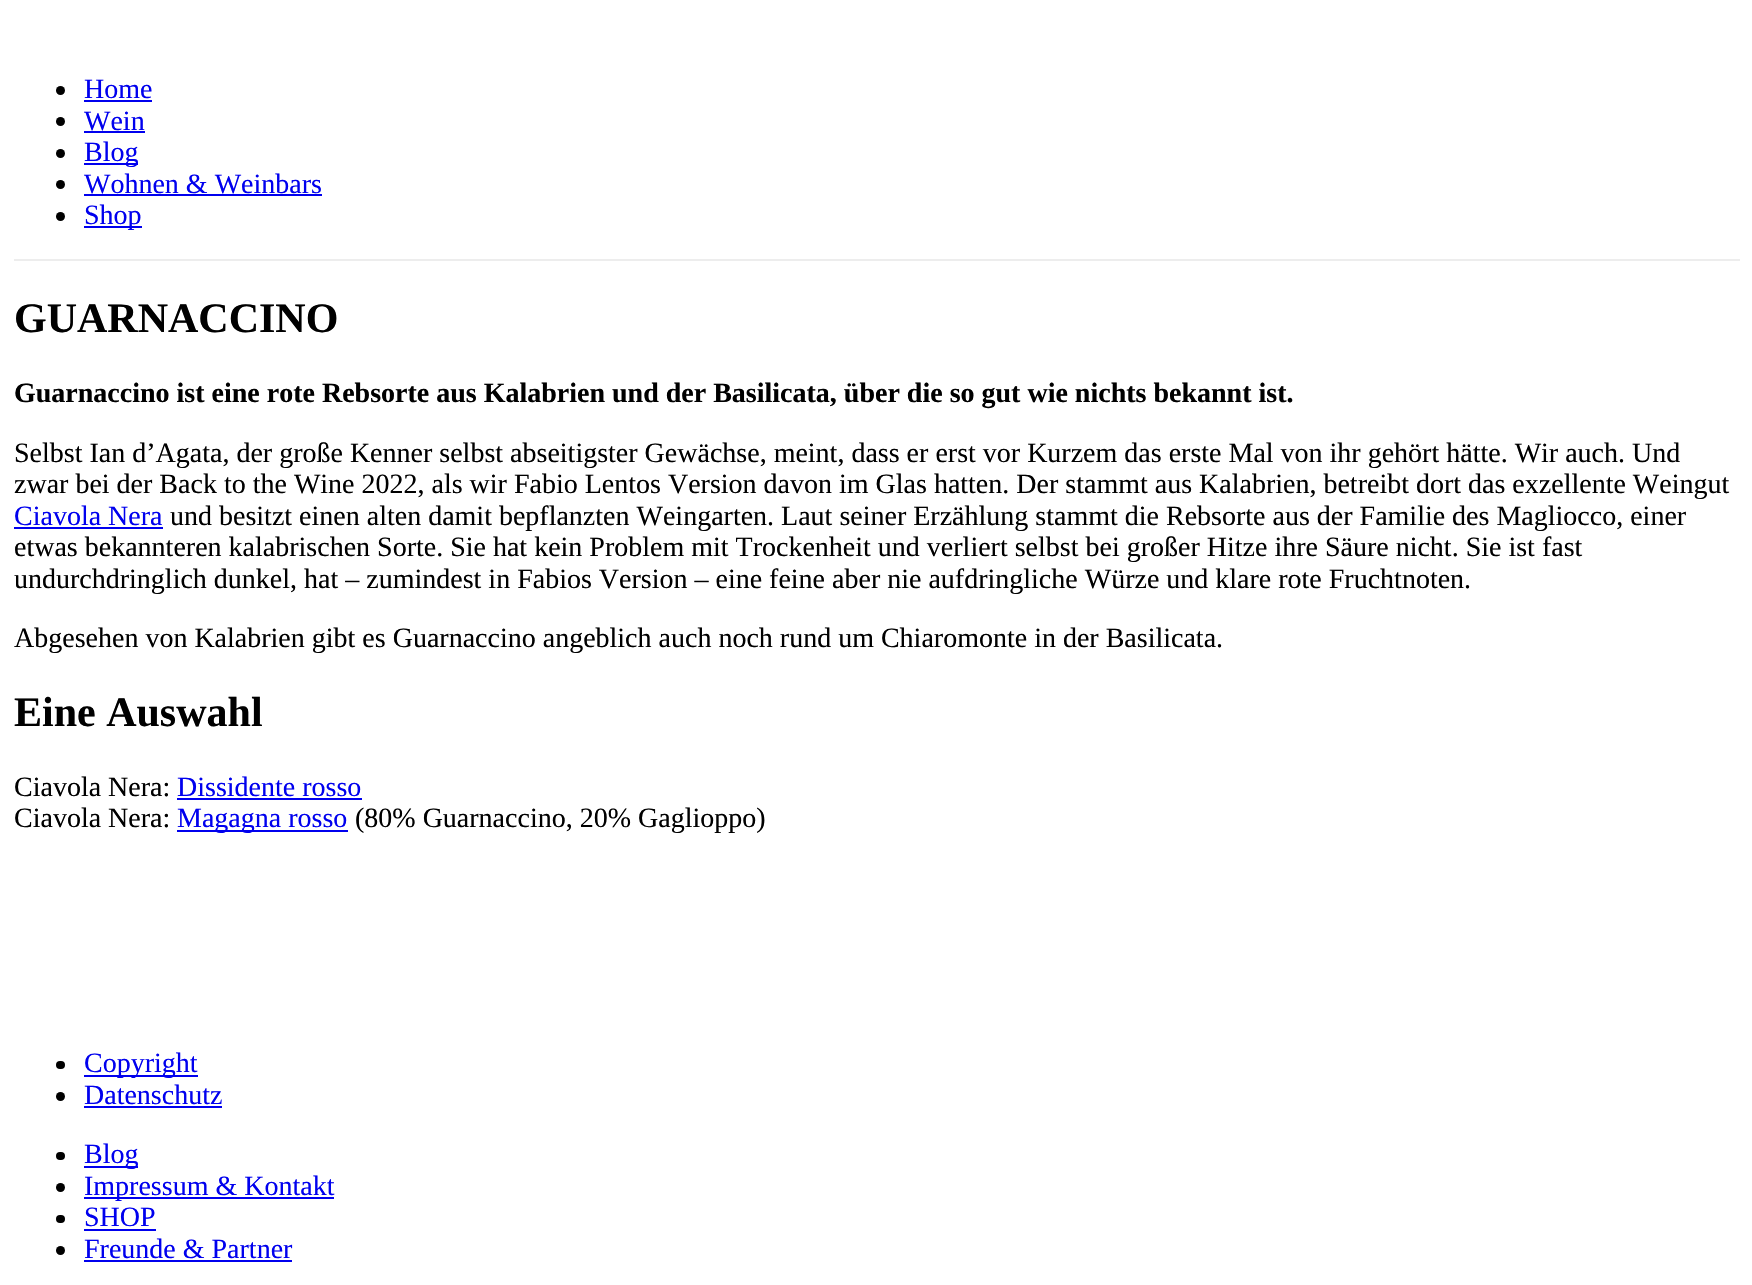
#include "include/core/SkBlurTypes.h"
#include "include/core/SkCanvas.h"
#include "include/core/SkData.h"
#include "include/core/SkFont.h"
#include "include/core/SkFontMgr.h"
#include "include/core/SkImage.h"
#include "include/core/SkMaskFilter.h"
#include "include/core/SkPaint.h"
#include "include/core/SkPathBuilder.h"
#include "include/core/SkTextBlob.h"
#include "include/effects/SkDashPathEffect.h"
#include "include/effects/SkGradientShader.h"
#include "include/utils/SkParsePath.h"

extern sk_sp<SkFontMgr> fontMgr;

static SkFont font(const char* family, int weight, float size, bool italic = false) {
    SkFontStyle style(weight, SkFontStyle::kNormal_Width,
        italic ? SkFontStyle::kItalic_Slant : SkFontStyle::kUpright_Slant);
    SkFont result(fontMgr->matchFamilyStyle(family, style), size);
    result.setSubpixel(true);
    return result;
}

static void drawLabel(SkCanvas* canvas, const char* s, float x, float y, const SkFont& font, SkColor color) {
    SkPaint ink(SkColor4f::FromColor(color));
    ink.setAntiAlias(true);
    canvas->drawString(s, x, y, font, ink);
}

static void fillRect(SkCanvas* canvas, float x, float y, float w, float h, SkColor color) {
    SkPaint ink(SkColor4f::FromColor(color));
    ink.setAntiAlias(true);
    canvas->drawRect(SkRect::MakeXYWH(x, y, w, h), ink);
}

static void fillRRect(SkCanvas* canvas, float x, float y, float w, float h, float radius, SkColor color) {
    SkPaint ink(SkColor4f::FromColor(color));
    ink.setAntiAlias(true);
    canvas->drawRoundRect(SkRect::MakeXYWH(x, y, w, h), radius, radius, ink);
}

void draw(SkCanvas* canvas) {
    SkPaint paint;
    paint.setAntiAlias(true);
    canvas->clear(0xFFFFFFFF);
    fillRect(canvas, 14, 259, 1726, 2, 0xFFEDEDED);
    paint.setColor(0xFF000000);
    canvas->drawCircle(60.5f, 90.5f, 4.5f, paint);
    SkFont font1 = font("Liberation Serif", 400, 28);
    drawLabel(canvas, "Home", 84, 98, font1, 0xFF0000EE);
    fillRect(canvas, 84, 100, 68, 2, 0xFF0000EE);
    canvas->drawCircle(60.5f, 121.5f, 4.5f, paint);
    drawLabel(canvas, "Wein", 84, 130, font1, 0xFF0000EE);
    fillRect(canvas, 84, 131, 61, 2, 0xFF0000EE);
    canvas->drawCircle(60.5f, 153.5f, 4.5f, paint);
    fillRect(canvas, 84, 163, 54, 2, 0xFF0000EE);
    drawLabel(canvas, "Blog", 84, 161, font1, 0xFF0000EE);
    canvas->drawCircle(60.5f, 184.5f, 4.5f, paint);
    drawLabel(canvas, "Wohnen & Weinbars", 84, 193, font1, 0xFF0000EE);
    fillRect(canvas, 84, 194, 238, 2, 0xFF0000EE);
    canvas->drawCircle(60.5f, 216.5f, 4.5f, paint);
    fillRect(canvas, 84, 226, 58, 2, 0xFF0000EE);
    drawLabel(canvas, "Shop", 84, 224, font1, 0xFF0000EE);
    SkFont font2 = font("Liberation Serif", 700, 42);
    drawLabel(canvas, "GUARNACCINO", 14, 332, font2, 0xFF000000);
    SkFont font3 = font("Liberation Serif", 700, 28);
    drawLabel(canvas, "Guarnaccino ist eine rote Rebsorte aus Kalabrien und der Basilicata, über die so gut wie nichts bekannt ist.", 14, 402, font3, 0xFF000000);
    drawLabel(canvas, "Selbst Ian d’Agata, der große Kenner selbst abseitigster Gewächse, meint, dass er erst vor Kurzem das erste Mal von ihr gehört hätte. Wir auch. Und", 14, 462, font1, 0xFF000000);
    drawLabel(canvas, "zwar bei der Back to the Wine 2022, als wir Fabio Lentos Version davon im Glas hatten. Der stammt aus Kalabrien, betreibt dort das exzellente Weingut", 14, 493, font1, 0xFF000000);
    drawLabel(canvas, "Ciavola Nera", 14, 525, font1, 0xFF0000EE);
    fillRect(canvas, 14, 527, 149, 2, 0xFF0000EE);
    drawLabel(canvas, "und besitzt einen alten damit bepflanzten Weingarten. Laut seiner Erzählung stammt die Rebsorte aus der Familie des Magliocco, einer", 170, 525, font1, 0xFF000000);
    drawLabel(canvas, "etwas bekannteren kalabrischen Sorte. Sie hat kein Problem mit Trockenheit und verliert selbst bei großer Hitze ihre Säure nicht. Sie ist fast", 14, 556, font1, 0xFF000000);
    drawLabel(canvas, "undurchdringlich dunkel, hat – zumindest in Fabios Version – eine feine aber nie aufdringliche Würze und klare rote Fruchtnoten.", 14, 588, font1, 0xFF000000);
    drawLabel(canvas, "Abgesehen von Kalabrien gibt es Guarnaccino angeblich auch noch rund um Chiaromonte in der Basilicata.", 14, 647, font1, 0xFF000000);
    drawLabel(canvas, "Eine Auswahl", 14, 726, font2, 0xFF000000);
    drawLabel(canvas, "Ciavola Nera:", 14, 796, font1, 0xFF000000);
    drawLabel(canvas, "Dissidente rosso", 177, 796, font1, 0xFF0000EE);
    fillRect(canvas, 177, 798, 185, 2, 0xFF0000EE);
    drawLabel(canvas, "Ciavola Nera:", 14, 827, font1, 0xFF000000);
    fillRect(canvas, 177, 830, 171, 2, 0xFF0000EE);
    drawLabel(canvas, "Magagna rosso", 177, 827, font1, 0xFF0000EE);
    drawLabel(canvas, "(80% Guarnaccino, 20% Gaglioppo)", 355, 827, font1, 0xFF000000);
    fillRRect(canvas, 56, 1061, 9, 8, 4, 0xFF000000);
    fillRect(canvas, 84, 1075, 114, 2, 0xFF0000EE);
    drawLabel(canvas, "Copyright", 84, 1072, font1, 0xFF0000EE);
    canvas->drawCircle(60.5f, 1096.5f, 4.5f, paint);
    drawLabel(canvas, "Datenschutz", 84, 1104, font1, 0xFF0000EE);
    fillRect(canvas, 84, 1106, 138, 2, 0xFF0000EE);
    fillRRect(canvas, 56, 1152, 9, 8, 4, 0xFF000000);
    fillRect(canvas, 84, 1166, 54, 2, 0xFF0000EE);
    drawLabel(canvas, "Blog", 84, 1163, font1, 0xFF0000EE);
    canvas->drawCircle(60.5f, 1187.5f, 4.5f, paint);
    fillRect(canvas, 84, 1197, 250, 2, 0xFF0000EE);
    drawLabel(canvas, "Impressum & Kontakt", 84, 1195, font1, 0xFF0000EE);
    fillRRect(canvas, 56, 1215, 9, 8, 4, 0xFF000000);
    drawLabel(canvas, "SHOP", 84, 1226, font1, 0xFF0000EE);
    fillRect(canvas, 84, 1229, 72, 2, 0xFF0000EE);
    canvas->drawCircle(60.5f, 1250.5f, 4.5f, paint);
    drawLabel(canvas, "Freunde & Partner", 84, 1258, font1, 0xFF0000EE);
    fillRect(canvas, 84, 1260, 208, 2, 0xFF0000EE);
}
